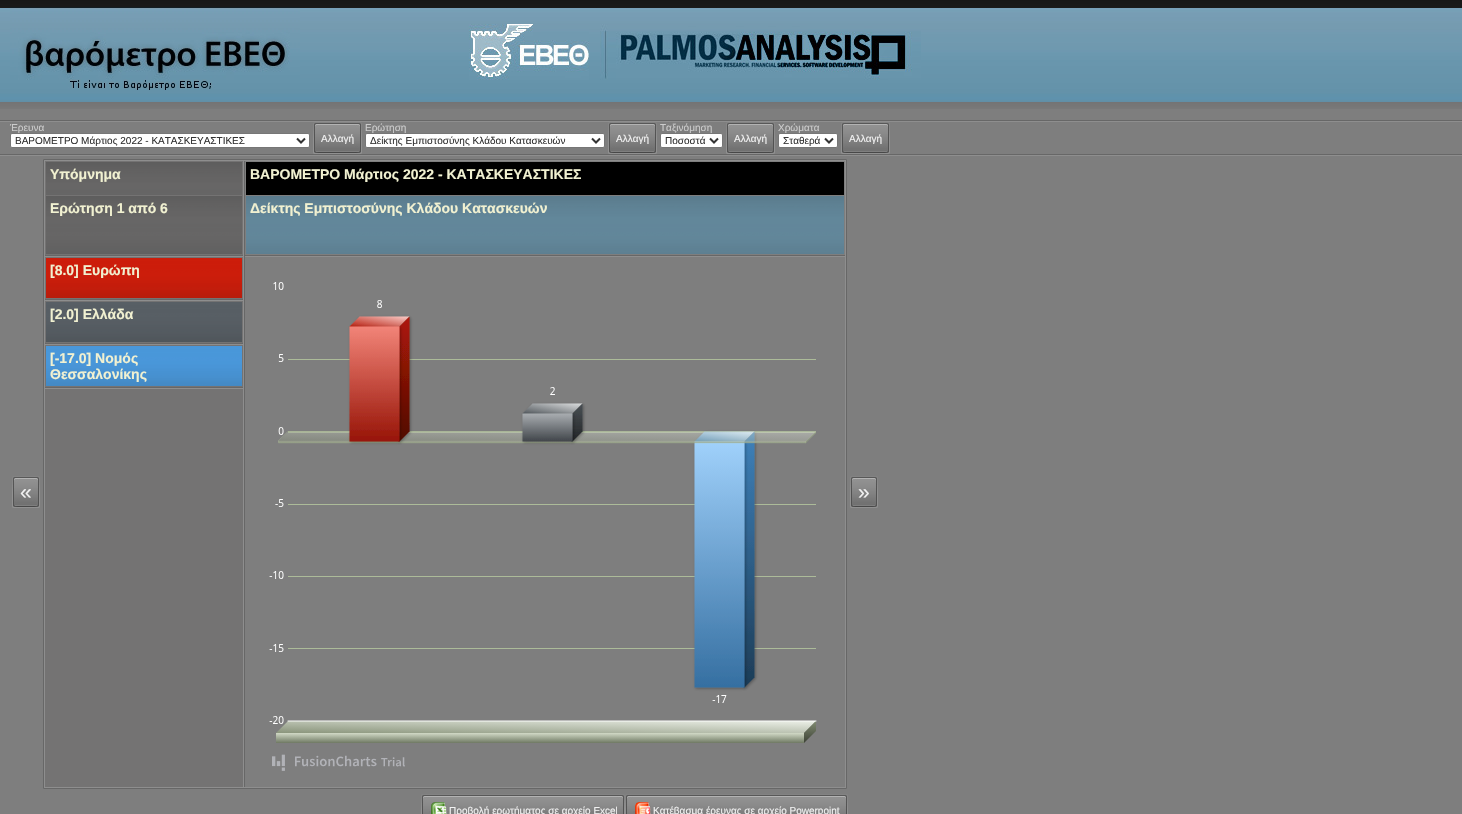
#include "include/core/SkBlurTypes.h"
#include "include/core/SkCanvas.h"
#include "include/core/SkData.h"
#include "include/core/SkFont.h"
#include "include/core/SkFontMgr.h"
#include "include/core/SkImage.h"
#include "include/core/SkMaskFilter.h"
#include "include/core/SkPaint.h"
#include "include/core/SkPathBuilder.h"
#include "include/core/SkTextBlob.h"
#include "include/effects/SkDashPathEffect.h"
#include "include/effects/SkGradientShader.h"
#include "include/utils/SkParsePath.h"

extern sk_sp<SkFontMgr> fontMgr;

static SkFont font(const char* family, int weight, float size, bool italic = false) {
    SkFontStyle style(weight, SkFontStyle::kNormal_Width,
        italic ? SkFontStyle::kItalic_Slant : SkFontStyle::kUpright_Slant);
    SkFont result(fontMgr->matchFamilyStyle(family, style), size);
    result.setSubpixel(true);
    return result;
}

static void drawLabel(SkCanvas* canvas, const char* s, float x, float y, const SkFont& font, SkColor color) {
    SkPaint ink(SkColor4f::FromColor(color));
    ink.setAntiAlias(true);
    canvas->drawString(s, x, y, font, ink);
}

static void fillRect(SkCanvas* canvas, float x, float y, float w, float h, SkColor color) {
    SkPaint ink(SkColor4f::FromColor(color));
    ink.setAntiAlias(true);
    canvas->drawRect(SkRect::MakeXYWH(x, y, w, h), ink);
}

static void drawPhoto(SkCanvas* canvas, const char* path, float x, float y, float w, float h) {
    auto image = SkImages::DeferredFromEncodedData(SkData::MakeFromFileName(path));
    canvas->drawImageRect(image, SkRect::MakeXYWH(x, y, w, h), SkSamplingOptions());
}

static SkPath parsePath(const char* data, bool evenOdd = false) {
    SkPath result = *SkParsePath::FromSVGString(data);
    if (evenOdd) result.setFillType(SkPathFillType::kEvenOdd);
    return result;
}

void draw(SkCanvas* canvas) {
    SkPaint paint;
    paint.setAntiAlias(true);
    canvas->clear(0xFF7E7E7E);
    drawPhoto(canvas, "assets/img1.png", 0, 0, 10, 109);
    drawPhoto(canvas, "assets/img2.png", 10, 0, 290, 109);
    drawPhoto(canvas, "assets/img3.png", 10, 7, 290, 83);
    drawPhoto(canvas, "assets/img4.png", 300, 0, 300, 109);
    drawPhoto(canvas, "assets/img5.png", 469, 24, 120, 56);
    drawPhoto(canvas, "assets/img6.png", 600, 0, 862, 109);
    drawPhoto(canvas, "assets/img7.png", 600, 24, 321, 56);
    drawPhoto(canvas, "assets/img8.png", 0, 120, 1462, 2);
    SkFont font1 = font("Liberation Sans", 400, 10);
    drawLabel(canvas, "Έρευνα", 10, 131, font1, 0xFFCCCCCC);
    paint.setColor(0xFFFFFFFF);
    canvas->drawRoundRect(SkRect::MakeXYWH(10.5f, 133.5f, 299, 14), 1.5f, 1.5f, paint);
    paint.setStroke(true);
    paint.setStrokeWidth(1);
    paint.setColor(0xFF767676);
    canvas->drawRoundRect(SkRect::MakeXYWH(10.5f, 133.5f, 299, 14), 1.5f, 1.5f, paint);
    paint.setStrokeWidth(2);
    paint.setColor(0xFF333333);
    canvas->drawPath(parsePath("M297 138.5L301 142.5L305 138.5"), paint);
    drawLabel(canvas, "ΒΑΡΟΜΕΤΡΟ Μάρτιος 2022 - ΚΑΤΑΣΚΕΥΑΣΤΙΚΕΣ", 15, 144, font1, 0xFF333333);
    drawPhoto(canvas, "assets/img9.png", 313, 122, 8, 32);
    drawPhoto(canvas, "assets/img10.png", 321, 122, 33, 32);
    drawLabel(canvas, "Αλλαγή", 321, 142, font1, 0xFFF1F1F1);
    drawPhoto(canvas, "assets/img11.png", 354, 122, 8, 32);
    drawLabel(canvas, "Ερώτηση", 365, 131, font1, 0xFFCCCCCC);
    paint.setStroke(false);
    paint.setColor(0xFFFFFFFF);
    canvas->drawRoundRect(SkRect::MakeXYWH(365.5f, 133.5f, 239, 14), 1.5f, 1.5f, paint);
    paint.setStroke(true);
    paint.setStrokeWidth(1);
    paint.setColor(0xFF767676);
    canvas->drawRoundRect(SkRect::MakeXYWH(365.5f, 133.5f, 239, 14), 1.5f, 1.5f, paint);
    paint.setStrokeWidth(2);
    paint.setColor(0xFF333333);
    canvas->drawPath(parsePath("M592 138.5L596 142.5L600 138.5"), paint);
    drawLabel(canvas, "Δείκτης Εμπιστοσύνης Κλάδου Κατασκευών", 370, 144, font1, 0xFF333333);
    drawPhoto(canvas, "assets/img9.png", 608, 122, 8, 32);
    drawPhoto(canvas, "assets/img10.png", 616, 122, 33, 32);
    drawLabel(canvas, "Αλλαγή", 616, 142, font1, 0xFFF1F1F1);
    drawPhoto(canvas, "assets/img11.png", 649, 122, 8, 32);
    drawLabel(canvas, "Ταξινόμηση", 660, 131, font1, 0xFFCCCCCC);
    paint.setStroke(false);
    paint.setColor(0xFFFFFFFF);
    canvas->drawRoundRect(SkRect::MakeXYWH(660.5f, 133.5f, 62, 14), 1.5f, 1.5f, paint);
    paint.setStroke(true);
    paint.setStrokeWidth(1);
    paint.setColor(0xFF767676);
    canvas->drawRoundRect(SkRect::MakeXYWH(660.5f, 133.5f, 62, 14), 1.5f, 1.5f, paint);
    paint.setStrokeWidth(2);
    paint.setColor(0xFF333333);
    canvas->drawPath(parsePath("M710 138.5L714 142.5L718 138.5"), paint);
    drawLabel(canvas, "Ποσοστά", 665, 144, font1, 0xFF333333);
    drawPhoto(canvas, "assets/img9.png", 726, 122, 8, 32);
    drawPhoto(canvas, "assets/img10.png", 734, 122, 33, 32);
    drawLabel(canvas, "Αλλαγή", 734, 142, font1, 0xFFF1F1F1);
    drawPhoto(canvas, "assets/img11.png", 767, 122, 8, 32);
    drawLabel(canvas, "Χρώματα", 778, 131, font1, 0xFFCCCCCC);
    paint.setStroke(false);
    paint.setColor(0xFFFFFFFF);
    canvas->drawRoundRect(SkRect::MakeXYWH(778.5f, 133.5f, 59, 14), 1.5f, 1.5f, paint);
    paint.setStroke(true);
    paint.setStrokeWidth(1);
    paint.setColor(0xFF767676);
    canvas->drawRoundRect(SkRect::MakeXYWH(778.5f, 133.5f, 59, 14), 1.5f, 1.5f, paint);
    paint.setStrokeWidth(2);
    paint.setColor(0xFF333333);
    canvas->drawPath(parsePath("M825 138.5L829 142.5L833 138.5"), paint);
    drawLabel(canvas, "Σταθερά", 783, 144, font1, 0xFF333333);
    drawPhoto(canvas, "assets/img9.png", 841, 122, 8, 32);
    drawPhoto(canvas, "assets/img10.png", 849, 122, 33, 32);
    drawLabel(canvas, "Αλλαγή", 849, 142, font1, 0xFFF1F1F1);
    drawPhoto(canvas, "assets/img11.png", 882, 122, 8, 32);
    drawPhoto(canvas, "assets/img8.png", 0, 154, 1462, 2);
    drawPhoto(canvas, "assets/img9.png", 12, 476, 8, 32);
    drawPhoto(canvas, "assets/img12.png", 20, 476, 12, 32);
    SkFont font2 = font("Liberation Sans", 400, 21);
    drawLabel(canvas, "«", 20, 499, font2, 0xFFF1F1F1);
    drawPhoto(canvas, "assets/img11.png", 32, 476, 8, 32);
    drawPhoto(canvas, "assets/img13.png", 43, 159, 2, 2);
    drawPhoto(canvas, "assets/img14.png", 45, 159, 800, 2);
    drawPhoto(canvas, "assets/img15.png", 845, 159, 2, 2);
    drawPhoto(canvas, "assets/img16.png", 43, 161, 2, 626);
    fillRect(canvas, 45, 161, 198, 626, 0xFF747373);
    drawPhoto(canvas, "assets/img17.png", 46, 162, 196, 33);
    SkFont font3 = font("Liberation Sans", 700, 14);
    drawLabel(canvas, "Υπόμνημα", 50, 179, font3, 0xFFF1F1D1);
    drawPhoto(canvas, "assets/img18.png", 46, 196, 196, 58);
    drawLabel(canvas, "Ερώτηση 1 από 6", 50, 213, font3, 0xFFF1F1D1);
    drawPhoto(canvas, "assets/img19.png", 45, 255, 198, 2);
    fillRect(canvas, 46, 258, 196, 40, 0xFFE9200B);
    drawPhoto(canvas, "assets/img20.png", 46, 258, 196, 40);
    drawLabel(canvas, "[8.0] Ευρώπη", 50, 275, font3, 0xFFF1F1D1);
    drawPhoto(canvas, "assets/img19.png", 45, 299, 198, 2);
    fillRect(canvas, 46, 302, 196, 40, 0xFF636B72);
    drawPhoto(canvas, "assets/img21.png", 46, 302, 196, 40);
    drawLabel(canvas, "[2.0] Ελλάδα", 50, 319, font3, 0xFFF1F1D1);
    drawPhoto(canvas, "assets/img19.png", 45, 343, 198, 2);
    fillRect(canvas, 46, 346, 196, 40, 0xFF53ACF8);
    drawPhoto(canvas, "assets/img22.png", 46, 346, 196, 40);
    drawLabel(canvas, "[-17.0] Νομός", 50, 363, font3, 0xFFF1F1D1);
    drawLabel(canvas, "Θεσσαλονίκης", 50, 379, font3, 0xFFF1F1D1);
    drawPhoto(canvas, "assets/img19.png", 45, 387, 198, 2);
    drawPhoto(canvas, "assets/img23.png", 243, 161, 2, 626);
    fillRect(canvas, 246, 162, 598, 33, 0xFF000000);
    drawLabel(canvas, "ΒΑΡΟΜΕΤΡΟ Μάρτιος 2022 - ΚΑΤΑΣΚΕΥΑΣΤΙΚΕΣ", 250, 179, font3, 0xFFF1F1D1);
    fillRect(canvas, 246, 196, 598, 58, 0xFF6F99AF);
    drawPhoto(canvas, "assets/img24.png", 246, 196, 598, 58);
    drawLabel(canvas, "Δείκτης Εμπιστοσύνης Κλάδου Κατασκευών", 250, 213, font3, 0xFFF1F1D1);
    drawPhoto(canvas, "assets/img25.png", 245, 255, 600, 2);
    drawPhoto(canvas, "assets/img26.png", 254, 272, 580, 510);
    drawPhoto(canvas, "assets/img23.png", 845, 161, 2, 626);
    drawPhoto(canvas, "assets/img27.png", 43, 787, 2, 2);
    drawPhoto(canvas, "assets/img28.png", 45, 787, 800, 2);
    drawPhoto(canvas, "assets/img29.png", 845, 787, 2, 2);
    drawPhoto(canvas, "assets/img30.png", 421, 794, 8, 20);
    drawPhoto(canvas, "assets/img31.png", 429, 794, 20, 17);
    drawPhoto(canvas, "assets/img32.png", 431, 802, 16, 12);
    drawPhoto(canvas, "assets/img33.png", 449, 794, 168, 17);
    drawLabel(canvas, "Προβολή ερωτήματος σε αρχείο Excel", 449, 814, font1, 0xFFF1F1F1);
    drawPhoto(canvas, "assets/img34.png", 617, 794, 8, 20);
    drawPhoto(canvas, "assets/img30.png", 625, 794, 8, 20);
    drawPhoto(canvas, "assets/img31.png", 633, 794, 20, 17);
    drawPhoto(canvas, "assets/img35.png", 635, 802, 16, 12);
    drawPhoto(canvas, "assets/img36.png", 653, 794, 187, 17);
    drawLabel(canvas, "Κατέβασμα έρευνας σε αρχείο Powerpoint", 653, 814, font1, 0xFFF1F1F1);
    drawPhoto(canvas, "assets/img34.png", 840, 794, 8, 20);
    drawPhoto(canvas, "assets/img9.png", 850, 476, 8, 32);
    drawPhoto(canvas, "assets/img12.png", 858, 476, 12, 32);
    drawLabel(canvas, "»", 858, 499, font2, 0xFFF1F1F1);
    drawPhoto(canvas, "assets/img11.png", 870, 476, 8, 32);
}
